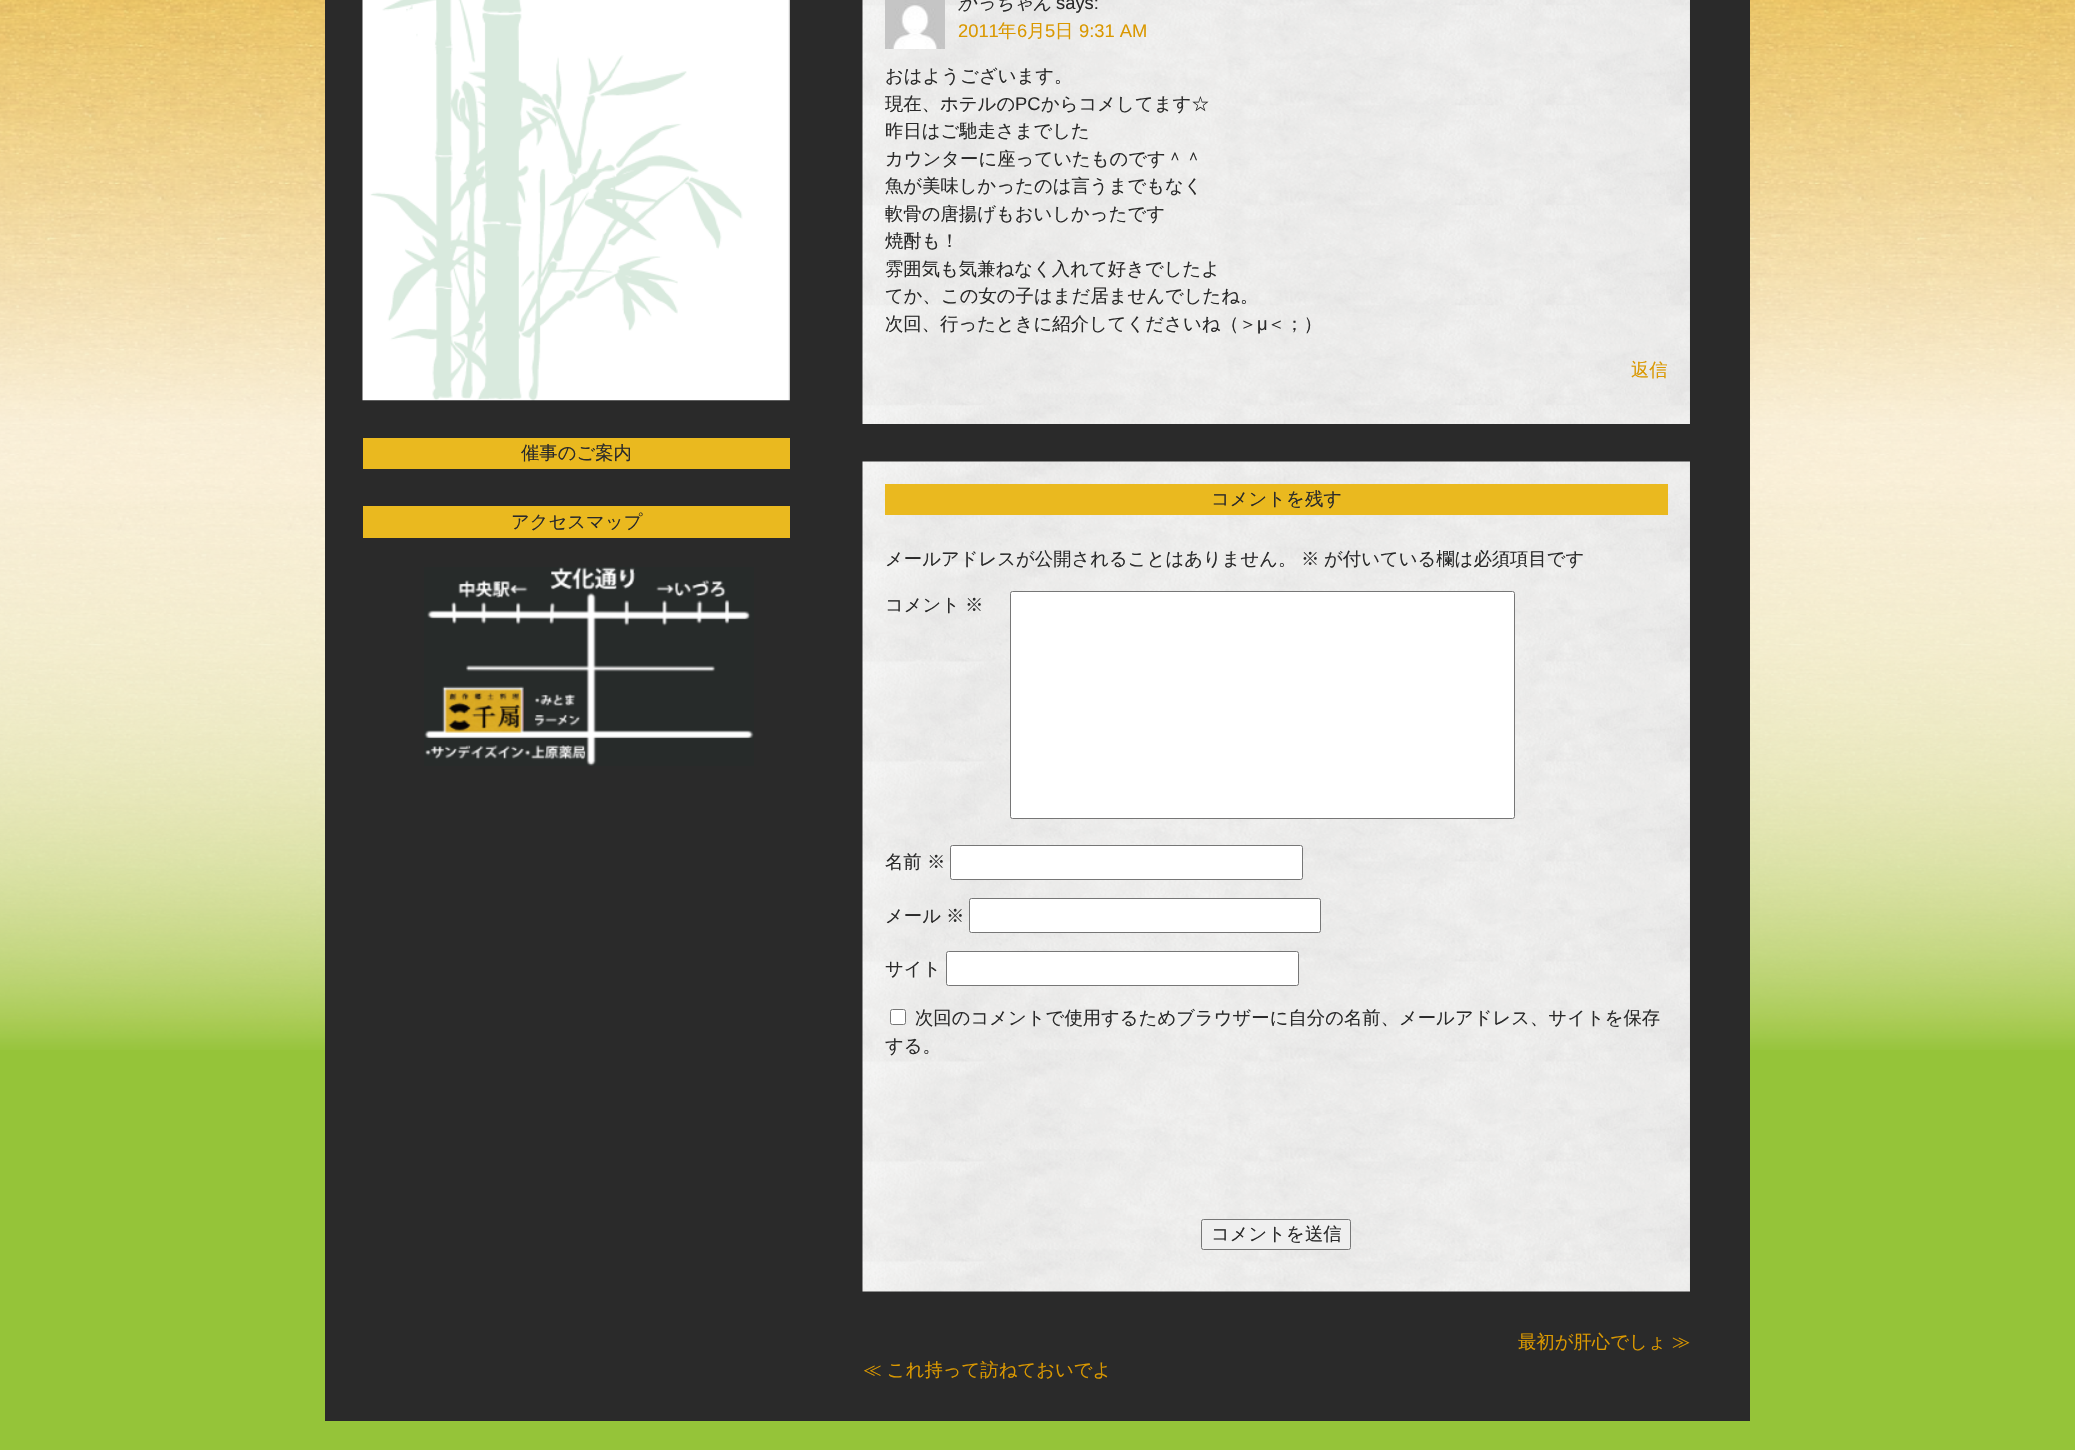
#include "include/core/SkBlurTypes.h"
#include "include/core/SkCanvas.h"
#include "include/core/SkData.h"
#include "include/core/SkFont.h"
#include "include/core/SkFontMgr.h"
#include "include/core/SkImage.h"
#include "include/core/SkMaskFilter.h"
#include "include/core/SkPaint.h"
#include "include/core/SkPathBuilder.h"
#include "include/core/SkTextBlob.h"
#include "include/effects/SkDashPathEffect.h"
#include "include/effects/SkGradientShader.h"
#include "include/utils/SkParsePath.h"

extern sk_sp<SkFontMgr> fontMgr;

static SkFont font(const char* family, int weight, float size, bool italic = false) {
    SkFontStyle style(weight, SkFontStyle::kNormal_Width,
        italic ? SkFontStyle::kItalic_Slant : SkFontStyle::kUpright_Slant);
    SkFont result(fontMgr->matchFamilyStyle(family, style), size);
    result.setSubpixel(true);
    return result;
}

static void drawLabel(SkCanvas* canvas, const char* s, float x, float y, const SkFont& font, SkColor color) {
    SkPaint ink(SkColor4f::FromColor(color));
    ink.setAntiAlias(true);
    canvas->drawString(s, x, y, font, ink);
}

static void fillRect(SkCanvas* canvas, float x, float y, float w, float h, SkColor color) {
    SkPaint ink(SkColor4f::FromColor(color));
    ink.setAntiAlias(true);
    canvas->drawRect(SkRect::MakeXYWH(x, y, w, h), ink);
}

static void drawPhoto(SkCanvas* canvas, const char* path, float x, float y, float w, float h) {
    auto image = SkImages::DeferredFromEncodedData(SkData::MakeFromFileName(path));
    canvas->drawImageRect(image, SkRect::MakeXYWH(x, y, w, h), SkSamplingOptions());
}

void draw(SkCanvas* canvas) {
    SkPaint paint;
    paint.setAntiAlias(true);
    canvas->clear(0xFF95C439);
    drawPhoto(canvas, "assets/img1.png", 0, 0, 2075, 1050);
    fillRect(canvas, 325, 0, 1425, 1421, 0xFF2A2A2A);
    drawPhoto(canvas, "assets/img2.png", 362, 0, 428, 401);
    fillRect(canvas, 363, 438, 427, 31, 0xFFEAB91F);
    SkFont font1 = font("WenQuanYi Zen Hei", 500, 18.35f);
    drawLabel(canvas, "催事のご案内", 521, 459, font1, 0xFF2A2A2A);
    fillRect(canvas, 363, 506, 427, 32, 0xFFEAB91F);
    drawLabel(canvas, "アクセスマップ", 511, 528, font1, 0xFF2A2A2A);
    drawPhoto(canvas, "assets/img3.png", 424, 567, 330, 199);
    drawPhoto(canvas, "assets/img4.png", 862, 0, 828, 424);
    drawPhoto(canvas, "assets/img5.png", 885, 0, 60, 49);
    SkFont font2 = font("WenQuanYi Zen Hei", 500, 18.35f, true);
    drawLabel(canvas, "かっちゃん", 958, 9, font2, 0xFF2A2A2A);
    SkFont font3 = font("Liberation Sans", 400, 18.35f);
    drawLabel(canvas, "says:", 1056, 9, font3, 0xFF2A2A2A);
    drawLabel(canvas, "2011", 958, 37, font3, 0xFFDA9800);
    drawLabel(canvas, "年", 998, 37, font1, 0xFFDA9800);
    drawLabel(canvas, "6", 1017, 37, font3, 0xFFDA9800);
    drawLabel(canvas, "月", 1027, 37, font1, 0xFFDA9800);
    drawLabel(canvas, "5", 1045, 37, font3, 0xFFDA9800);
    drawLabel(canvas, "日", 1055, 37, font1, 0xFFDA9800);
    drawLabel(canvas, "9:31 AM", 1079, 37, font3, 0xFFDA9800);
    drawLabel(canvas, "おはようございます。", 885, 82, font1, 0xFF2A2A2A);
    drawLabel(canvas, "現在、ホテルの", 885, 110, font1, 0xFF2A2A2A);
    drawLabel(canvas, "PC", 1015, 110, font3, 0xFF2A2A2A);
    drawLabel(canvas, "からコメしてます☆", 1041, 110, font1, 0xFF2A2A2A);
    drawLabel(canvas, "昨日はご馳走さまでした", 885, 137, font1, 0xFF2A2A2A);
    drawLabel(canvas, "カウンターに座っていたものです＾＾", 885, 165, font1, 0xFF2A2A2A);
    drawLabel(canvas, "魚が美味しかったのは言うまでもなく", 885, 192, font1, 0xFF2A2A2A);
    drawLabel(canvas, "軟骨の唐揚げもおいしかったです", 885, 220, font1, 0xFF2A2A2A);
    drawLabel(canvas, "焼酎も！", 885, 247, font1, 0xFF2A2A2A);
    drawLabel(canvas, "雰囲気も気兼ねなく入れて好きでしたよ", 885, 275, font1, 0xFF2A2A2A);
    drawLabel(canvas, "てか、この女の子はまだ居ませんでしたね。", 885, 302, font1, 0xFF2A2A2A);
    drawLabel(canvas, "次回、行ったときに紹介してくださいね（＞", 885, 330, font1, 0xFF2A2A2A);
    drawLabel(canvas, "μ", 1257, 330, font3, 0xFF2A2A2A);
    drawLabel(canvas, "＜；）", 1267, 330, font1, 0xFF2A2A2A);
    drawLabel(canvas, "返信", 1631, 376, font1, 0xFFDA9800);
    drawPhoto(canvas, "assets/img6.png", 862, 461, 828, 831);
    fillRect(canvas, 885, 484, 783, 31, 0xFFEAB91F);
    drawLabel(canvas, "コメントを残す", 1211, 505, font1, 0xFF2A2A2A);
    drawLabel(canvas, "メールアドレスが公開されることはありません。", 885, 565, font1, 0xFF2A2A2A);
    drawLabel(canvas, "※", 1301, 565, font1, 0xFF2A2A2A);
    drawLabel(canvas, "が付いている欄は必須項目です", 1324, 565, font1, 0xFF2A2A2A);
    drawLabel(canvas, "コメント", 885, 611, font1, 0xFF2A2A2A);
    drawLabel(canvas, "※", 965, 611, font1, 0xFF2A2A2A);
    paint.setColor(0xFFFFFFFF);
    canvas->drawRoundRect(SkRect::MakeXYWH(1010.5f, 591.5f, 504, 227), 2, 2, paint);
    paint.setStroke(true);
    paint.setStrokeWidth(1);
    paint.setColor(0xFF767676);
    canvas->drawRoundRect(SkRect::MakeXYWH(1010.5f, 591.5f, 504, 227), 2, 2, paint);
    drawLabel(canvas, "名前", 885, 868, font1, 0xFF2A2A2A);
    drawLabel(canvas, "※", 927, 868, font1, 0xFF2A2A2A);
    paint.setStroke(false);
    paint.setColor(0xFFFFFFFF);
    canvas->drawRoundRect(SkRect::MakeXYWH(950.5f, 845.5f, 352, 34), 2, 2, paint);
    paint.setStroke(true);
    paint.setColor(0xFF767676);
    canvas->drawRoundRect(SkRect::MakeXYWH(950.5f, 845.5f, 352, 34), 2, 2, paint);
    drawLabel(canvas, "メール", 885, 922, font1, 0xFF2A2A2A);
    drawLabel(canvas, "※", 946, 922, font1, 0xFF2A2A2A);
    paint.setStroke(false);
    paint.setColor(0xFFFFFFFF);
    canvas->drawRoundRect(SkRect::MakeXYWH(969.5f, 898.5f, 351, 34), 2, 2, paint);
    paint.setStroke(true);
    paint.setColor(0xFF767676);
    canvas->drawRoundRect(SkRect::MakeXYWH(969.5f, 898.5f, 351, 34), 2, 2, paint);
    drawLabel(canvas, "サイト", 885, 975, font1, 0xFF2A2A2A);
    paint.setStroke(false);
    paint.setColor(0xFFFFFFFF);
    canvas->drawRoundRect(SkRect::MakeXYWH(946.5f, 951.5f, 352, 34), 2, 2, paint);
    paint.setStroke(true);
    paint.setColor(0xFF767676);
    canvas->drawRoundRect(SkRect::MakeXYWH(946.5f, 951.5f, 352, 34), 2, 2, paint);
    paint.setStroke(false);
    paint.setColor(0xFFFFFFFF);
    canvas->drawRoundRect(SkRect::MakeXYWH(890.5f, 1009.5f, 15, 15), 2, 2, paint);
    paint.setStroke(true);
    paint.setColor(0xFF767676);
    canvas->drawRoundRect(SkRect::MakeXYWH(890.5f, 1009.5f, 15, 15), 2, 2, paint);
    drawLabel(canvas, "次回のコメントで使用するためブラウザーに自分の名前、メールアドレス、サイトを保存", 915, 1024, font1, 0xFF2A2A2A);
    drawLabel(canvas, "する。", 885, 1052, font1, 0xFF2A2A2A);
    paint.setStroke(false);
    paint.setColor(0xFFEFEFEF);
    canvas->drawRoundRect(SkRect::MakeXYWH(1201.5f, 1219.5f, 149, 30), 2, 2, paint);
    paint.setStroke(true);
    paint.setColor(0xFF767676);
    canvas->drawRoundRect(SkRect::MakeXYWH(1201.5f, 1219.5f, 149, 30), 2, 2, paint);
    drawLabel(canvas, "コメントを送信", 1211, 1240, font1, 0xFF2A2A2A);
    drawLabel(canvas, "最初が肝心でしょ ≫", 1518, 1348, font1, 0xFFDA9800);
    drawLabel(canvas, "≪ これ持って訪ねておいでよ", 863, 1376, font1, 0xFFDA9800);
}
